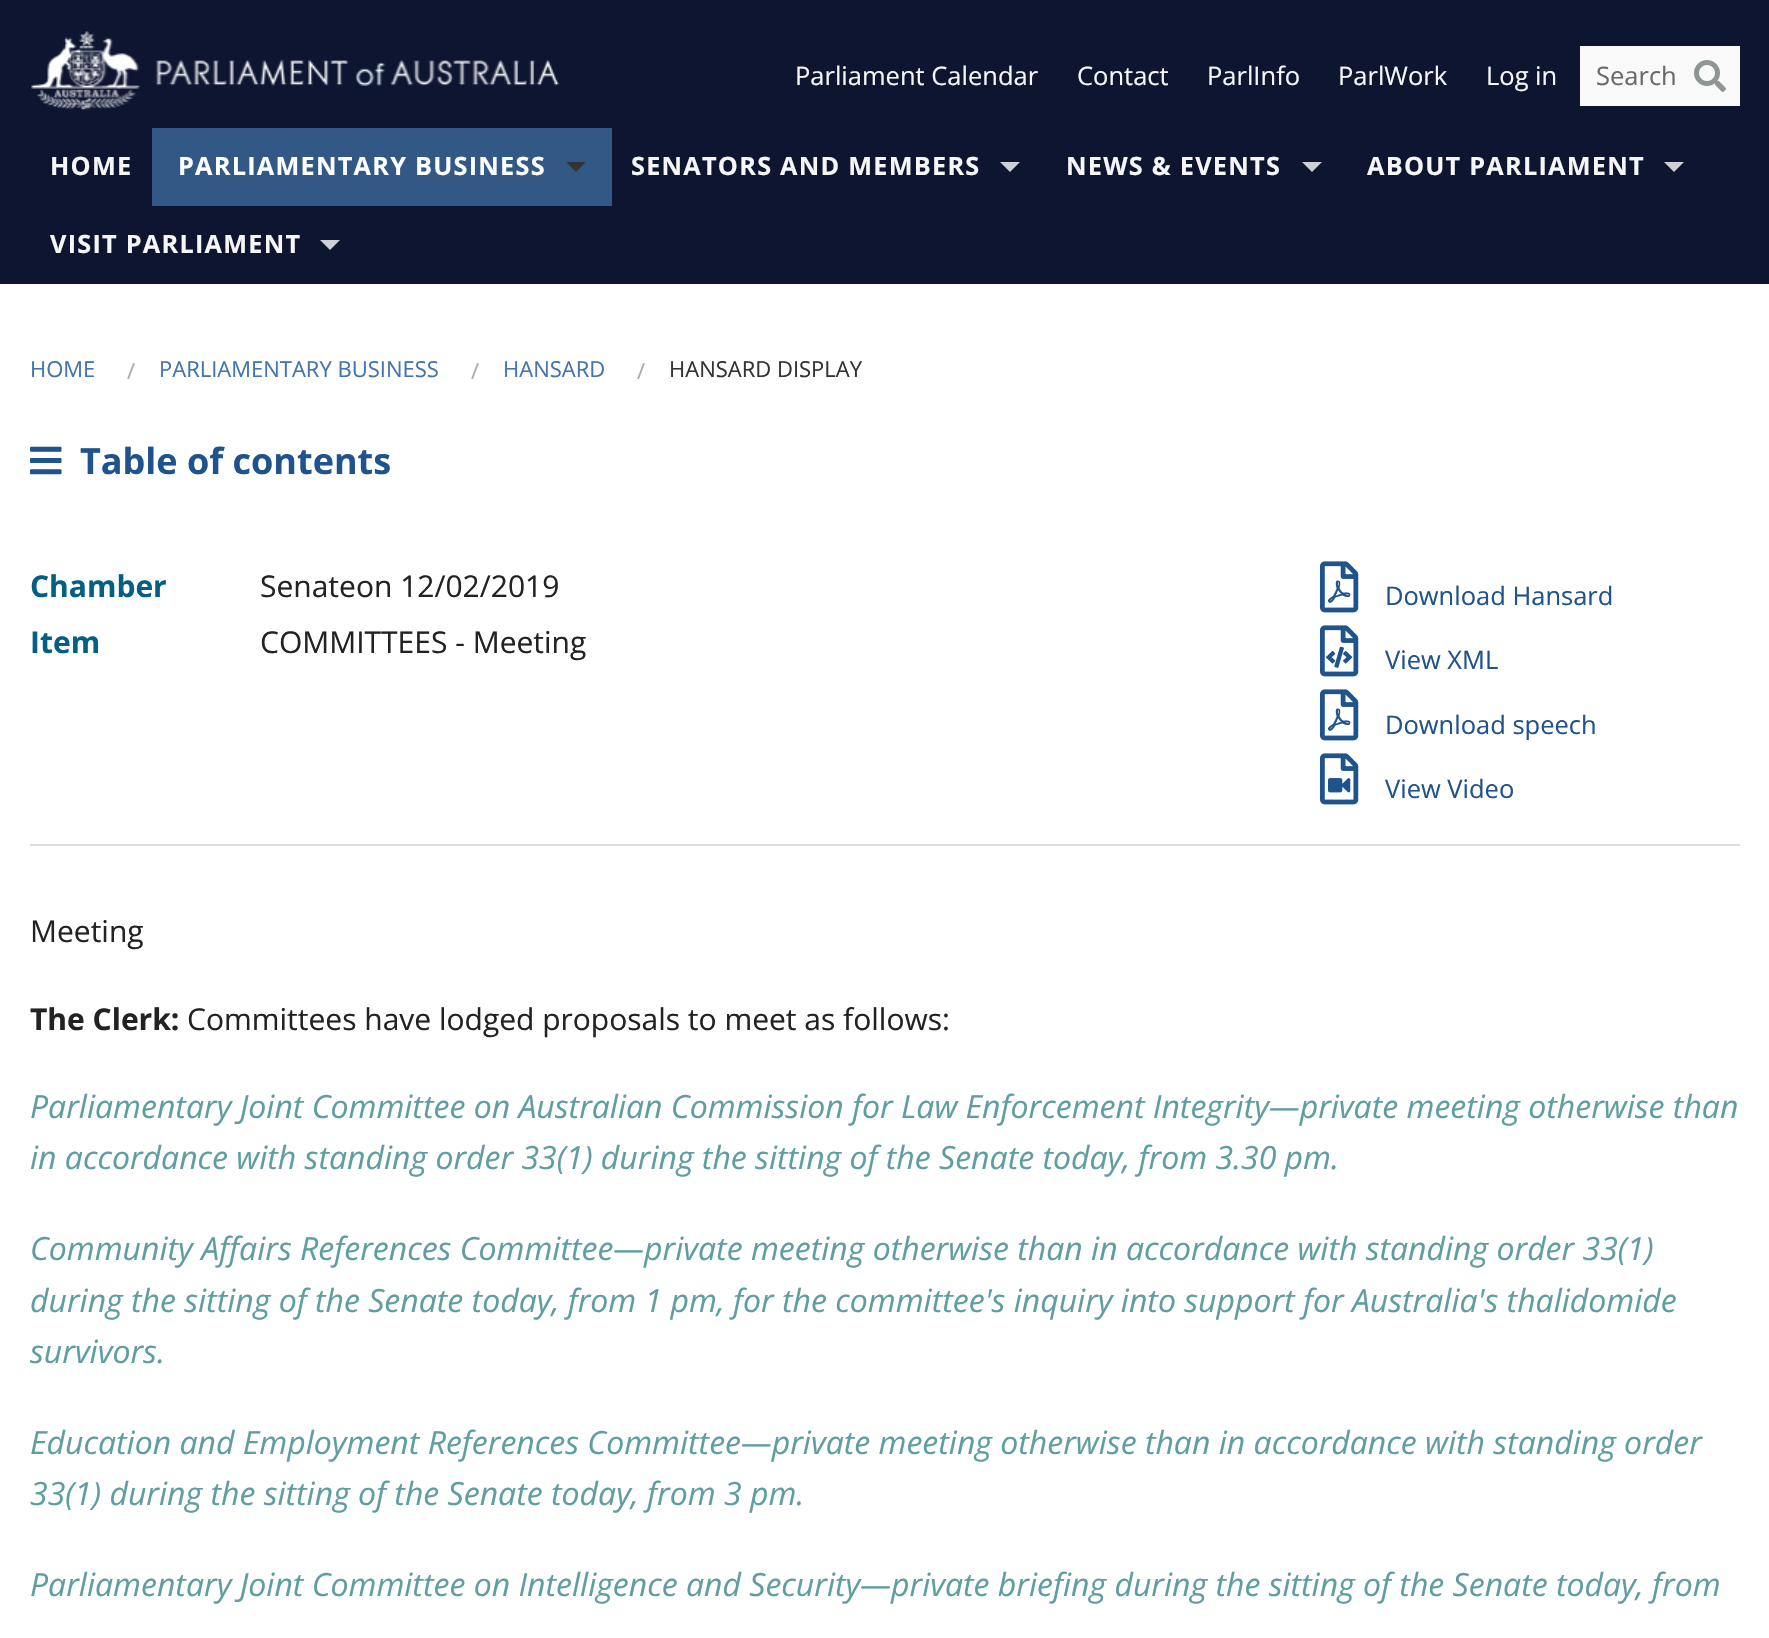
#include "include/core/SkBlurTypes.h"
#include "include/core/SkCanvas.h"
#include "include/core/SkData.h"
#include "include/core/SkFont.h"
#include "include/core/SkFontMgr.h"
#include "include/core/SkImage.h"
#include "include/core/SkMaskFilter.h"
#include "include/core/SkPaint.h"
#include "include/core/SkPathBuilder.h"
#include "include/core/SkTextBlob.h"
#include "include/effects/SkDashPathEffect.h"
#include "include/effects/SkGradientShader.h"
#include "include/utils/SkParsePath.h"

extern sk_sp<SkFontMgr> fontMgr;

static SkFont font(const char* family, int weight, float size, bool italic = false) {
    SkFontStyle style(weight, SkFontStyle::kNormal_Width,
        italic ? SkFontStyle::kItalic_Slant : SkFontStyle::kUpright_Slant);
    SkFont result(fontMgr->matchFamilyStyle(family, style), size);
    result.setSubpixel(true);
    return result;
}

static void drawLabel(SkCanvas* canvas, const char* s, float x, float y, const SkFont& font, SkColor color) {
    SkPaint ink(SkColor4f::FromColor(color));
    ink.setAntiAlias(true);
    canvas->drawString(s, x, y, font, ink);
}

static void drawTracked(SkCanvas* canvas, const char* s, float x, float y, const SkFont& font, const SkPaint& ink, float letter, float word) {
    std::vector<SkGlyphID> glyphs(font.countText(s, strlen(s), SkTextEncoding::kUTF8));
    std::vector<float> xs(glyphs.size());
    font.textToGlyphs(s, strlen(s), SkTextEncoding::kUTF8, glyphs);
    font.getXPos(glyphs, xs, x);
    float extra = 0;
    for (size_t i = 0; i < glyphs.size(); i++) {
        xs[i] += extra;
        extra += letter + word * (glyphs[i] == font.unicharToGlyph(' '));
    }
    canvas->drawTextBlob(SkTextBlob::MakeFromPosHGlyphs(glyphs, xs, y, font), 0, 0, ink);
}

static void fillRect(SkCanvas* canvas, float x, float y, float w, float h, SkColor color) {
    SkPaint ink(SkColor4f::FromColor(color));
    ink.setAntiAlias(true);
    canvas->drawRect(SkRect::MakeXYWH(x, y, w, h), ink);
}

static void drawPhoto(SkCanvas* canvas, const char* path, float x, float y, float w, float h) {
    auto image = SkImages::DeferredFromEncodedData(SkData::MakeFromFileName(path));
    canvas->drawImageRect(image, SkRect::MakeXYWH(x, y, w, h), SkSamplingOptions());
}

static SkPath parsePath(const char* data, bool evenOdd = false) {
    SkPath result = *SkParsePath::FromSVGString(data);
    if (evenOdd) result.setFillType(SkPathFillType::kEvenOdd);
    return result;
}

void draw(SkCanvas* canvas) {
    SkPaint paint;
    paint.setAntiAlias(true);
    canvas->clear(0xFFFFFFFF);
    fillRect(canvas, 0, 0, 1769, 284, 0xFF0E1531);
    drawPhoto(canvas, "assets/img1.png", 31, 31, 528, 79);
    SkFont font1 = font("Open Sans", 400, 25.5f);
    drawLabel(canvas, "Parliament Calendar", 795, 85, font1, 0xFFF6F6F6);
    drawLabel(canvas, "Contact", 1077, 85, font1, 0xFFF6F6F6);
    drawLabel(canvas, "ParlInfo", 1207, 85, font1, 0xFFF6F6F6);
    drawLabel(canvas, "ParlWork", 1338, 85, font1, 0xFFF6F6F6);
    drawLabel(canvas, "Log in", 1486, 85, font1, 0xFFF6F6F6);
    fillRect(canvas, 1580, 46, 160, 60, 0xFFF9F9F9);
    drawLabel(canvas, "Search", 1596, 85, font1, 0xFF696969);
    drawPhoto(canvas, "assets/img2.png", 1694, 60, 32, 32);
    SkFont font2 = font("Open Sans", 700, 25.25f);
    paint.setColor(0xFFF6F6F6);
    drawTracked(canvas, "HOME", 50, 175, font2, paint, 1.25f, 0);
    fillRect(canvas, 152, 128, 460, 78, 0xFF325986);
    paint.setColor(0xFFFFFFFF);
    drawTracked(canvas, "PARLIAMENTARY BUSINESS", 178, 175, font2, paint, 1.25f, 0);
    paint.setColor(0xFF333333);
    canvas->drawPath(parsePath("M566 162H586L576 172Z"), paint);
    paint.setColor(0xFFF6F6F6);
    drawTracked(canvas, "SENATORS AND MEMBERS", 631, 175, font2, paint, 1.25f, 0);
    paint.setColor(0xFFCFD0D6);
    canvas->drawPath(parsePath("M1000 162H1020L1010 172Z"), paint);
    paint.setColor(0xFFF6F6F6);
    drawTracked(canvas, "NEWS & EVENTS", 1066, 175, font2, paint, 1.25f, 0);
    paint.setColor(0xFFCFD0D6);
    canvas->drawPath(parsePath("M1302 162H1322L1312 172Z"), paint);
    paint.setColor(0xFFF6F6F6);
    drawTracked(canvas, "ABOUT PARLIAMENT", 1367, 175, font2, paint, 1.25f, 0);
    paint.setColor(0xFFCFD0D6);
    canvas->drawPath(parsePath("M1664 162H1684L1674 172Z"), paint);
    paint.setColor(0xFFF6F6F6);
    drawTracked(canvas, "VISIT PARLIAMENT", 50, 253, font2, paint, 1.25f, 0);
    paint.setColor(0xFFCFD0D6);
    canvas->drawPath(parsePath("M320 240H340L330 250Z"), paint);
    SkFont font3 = font("Open Sans", 400, 22);
    drawLabel(canvas, "HOME", 30, 377, font3, 0xFF4275AE);
    drawLabel(canvas, "/", 127, 379, font3, 0xFFAAAAAA);
    drawLabel(canvas, "PARLIAMENTARY BUSINESS", 159, 377, font3, 0xFF4275AE);
    drawLabel(canvas, "/", 471, 379, font3, 0xFFAAAAAA);
    drawLabel(canvas, "HANSARD", 503, 377, font3, 0xFF4275AE);
    drawLabel(canvas, "/", 637, 379, font3, 0xFFAAAAAA);
    drawLabel(canvas, "HANSARD DISPLAY", 669, 377, font3, 0xFF333333);
    drawPhoto(canvas, "assets/img3.png", 30, 446, 32, 29);
    SkFont font4 = font("Open Sans", 700, 36);
    drawLabel(canvas, "Table of contents", 80, 474, font4, 0xFF1F538D);
    SkFont font5 = font("Open Sans", 700, 30);
    drawLabel(canvas, "Chamber", 30, 597, font5, 0xFF045F85);
    SkFont font6 = font("Open Sans", 400, 30);
    drawLabel(canvas, "Senateon 12/02/2019", 260, 597, font6, 0xFF222222);
    drawLabel(canvas, "Item", 30, 653, font5, 0xFF045F85);
    drawLabel(canvas, "COMMITTEES - Meeting", 260, 653, font6, 0xFF222222);
    drawPhoto(canvas, "assets/img4.png", 1320, 561, 39, 52);
    drawLabel(canvas, "Download Hansard", 1385, 605, font1, 0xFF1F538D);
    drawPhoto(canvas, "assets/img5.png", 1320, 625, 39, 52);
    drawLabel(canvas, "View XML", 1385, 669, font1, 0xFF1F538D);
    drawPhoto(canvas, "assets/img4.png", 1320, 689, 39, 52);
    drawLabel(canvas, "Download speech", 1385, 734, font1, 0xFF1F538D);
    drawPhoto(canvas, "assets/img6.png", 1320, 753, 39, 52);
    drawLabel(canvas, "View Video", 1385, 798, font1, 0xFF1F538D);
    fillRect(canvas, 30, 844, 1710, 2, 0xFFDDDDDD);
    drawLabel(canvas, "Meeting", 30, 942, font6, 0xFF222222);
    drawLabel(canvas, "The Clerk:", 30, 1030, font5, 0xFF222222);
    drawLabel(canvas, "Committees have lodged proposals to meet as follows:", 187, 1030, font6, 0xFF222222);
    SkFont font7 = font("Open Sans", 400, 32, true);
    drawLabel(canvas, "Parliamentary Joint Committee on Australian Commission for Law Enforcement Integrity—private meeting otherwise than", 30, 1118, font7, 0xFF5F9EA0);
    drawLabel(canvas, "in accordance with standing order 33(1) during the sitting of the Senate today, from 3.30 pm.", 30, 1169, font7, 0xFF5F9EA0);
    drawLabel(canvas, "Community Affairs References Committee—private meeting otherwise than in accordance with standing order 33(1)", 30, 1260, font7, 0xFF5F9EA0);
    drawLabel(canvas, "during the sitting of the Senate today, from 1 pm, for the committee's inquiry into support for Australia's thalidomide", 30, 1312, font7, 0xFF5F9EA0);
    drawLabel(canvas, "survivors.", 30, 1363, font7, 0xFF5F9EA0);
    drawLabel(canvas, "Education and Employment References Committee—private meeting otherwise than in accordance with standing order", 30, 1454, font7, 0xFF5F9EA0);
    drawLabel(canvas, "33(1) during the sitting of the Senate today, from 3 pm.", 30, 1505, font7, 0xFF5F9EA0);
    drawLabel(canvas, "Parliamentary Joint Committee on Intelligence and Security—private briefing during the sitting of the Senate today, from", 30, 1596, font7, 0xFF5F9EA0);
}
